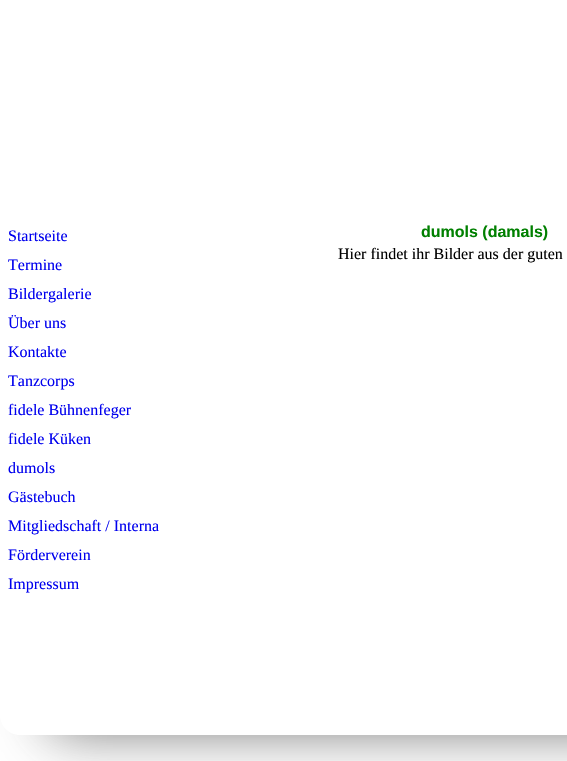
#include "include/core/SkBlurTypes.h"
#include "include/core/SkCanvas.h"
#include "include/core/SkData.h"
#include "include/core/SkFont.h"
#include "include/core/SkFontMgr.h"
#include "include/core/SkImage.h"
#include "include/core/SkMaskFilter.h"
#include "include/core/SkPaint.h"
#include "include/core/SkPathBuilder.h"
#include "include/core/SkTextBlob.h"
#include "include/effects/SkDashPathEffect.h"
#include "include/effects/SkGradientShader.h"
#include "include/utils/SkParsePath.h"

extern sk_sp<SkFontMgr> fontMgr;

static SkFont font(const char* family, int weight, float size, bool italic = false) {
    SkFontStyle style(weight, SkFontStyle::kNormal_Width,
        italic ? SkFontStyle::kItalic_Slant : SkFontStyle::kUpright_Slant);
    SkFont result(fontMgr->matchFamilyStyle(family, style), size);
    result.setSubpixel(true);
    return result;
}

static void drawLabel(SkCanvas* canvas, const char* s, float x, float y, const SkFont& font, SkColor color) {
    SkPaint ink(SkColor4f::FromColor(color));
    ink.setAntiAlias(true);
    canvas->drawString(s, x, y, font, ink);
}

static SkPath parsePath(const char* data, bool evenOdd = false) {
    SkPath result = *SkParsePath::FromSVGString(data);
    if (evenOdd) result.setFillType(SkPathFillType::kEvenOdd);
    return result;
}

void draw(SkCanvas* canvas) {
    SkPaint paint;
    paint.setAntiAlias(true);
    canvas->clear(0xFFFFFFFF);
    canvas->save();
    canvas->clipPath(parsePath("M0 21H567V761H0ZM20 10H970C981 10 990 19 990 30V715C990 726 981 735 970 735H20C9 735 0 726 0 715V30C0 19 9 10 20 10Z", true), true);
    paint.setColor(0xBF3C3C3C);
    paint.setMaskFilter(SkMaskFilter::MakeBlur(kNormal_SkBlurStyle, 27.5f));
    canvas->drawRect(SkRect::MakeXYWH(50, 105, 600, 625), paint);
    paint.setMaskFilter(nullptr);
    canvas->restore();
    SkFont font1 = font("Liberation Serif", 400, 16);
    drawLabel(canvas, "Startseite", 8, 241, font1, 0xFF0000EE);
    drawLabel(canvas, "Termine", 8, 270, font1, 0xFF0000EE);
    drawLabel(canvas, "Bildergalerie", 8, 299, font1, 0xFF0000EE);
    drawLabel(canvas, "Über uns", 8, 328, font1, 0xFF0000EE);
    drawLabel(canvas, "Kontakte", 8, 357, font1, 0xFF0000EE);
    drawLabel(canvas, "Tanzcorps", 8, 386, font1, 0xFF0000EE);
    drawLabel(canvas, "fidele Bühnenfeger", 8, 415, font1, 0xFF0000EE);
    drawLabel(canvas, "fidele Küken", 8, 444, font1, 0xFF0000EE);
    drawLabel(canvas, "dumols", 8, 473, font1, 0xFF0000EE);
    drawLabel(canvas, "Gästebuch", 8, 502, font1, 0xFF0000EE);
    drawLabel(canvas, "Mitgliedschaft / Interna", 8, 531, font1, 0xFF0000EE);
    drawLabel(canvas, "Förderverein", 8, 560, font1, 0xFF0000EE);
    drawLabel(canvas, "Impressum", 8, 589, font1, 0xFF0000EE);
    SkFont font2 = font("Liberation Sans", 700, 16);
    drawLabel(canvas, "dumols (damals)", 421, 237, font2, 0xFF008000);
    drawLabel(canvas, "Hier findet ihr Bilder aus der guten", 338, 259, font1, 0xFF000000);
}
